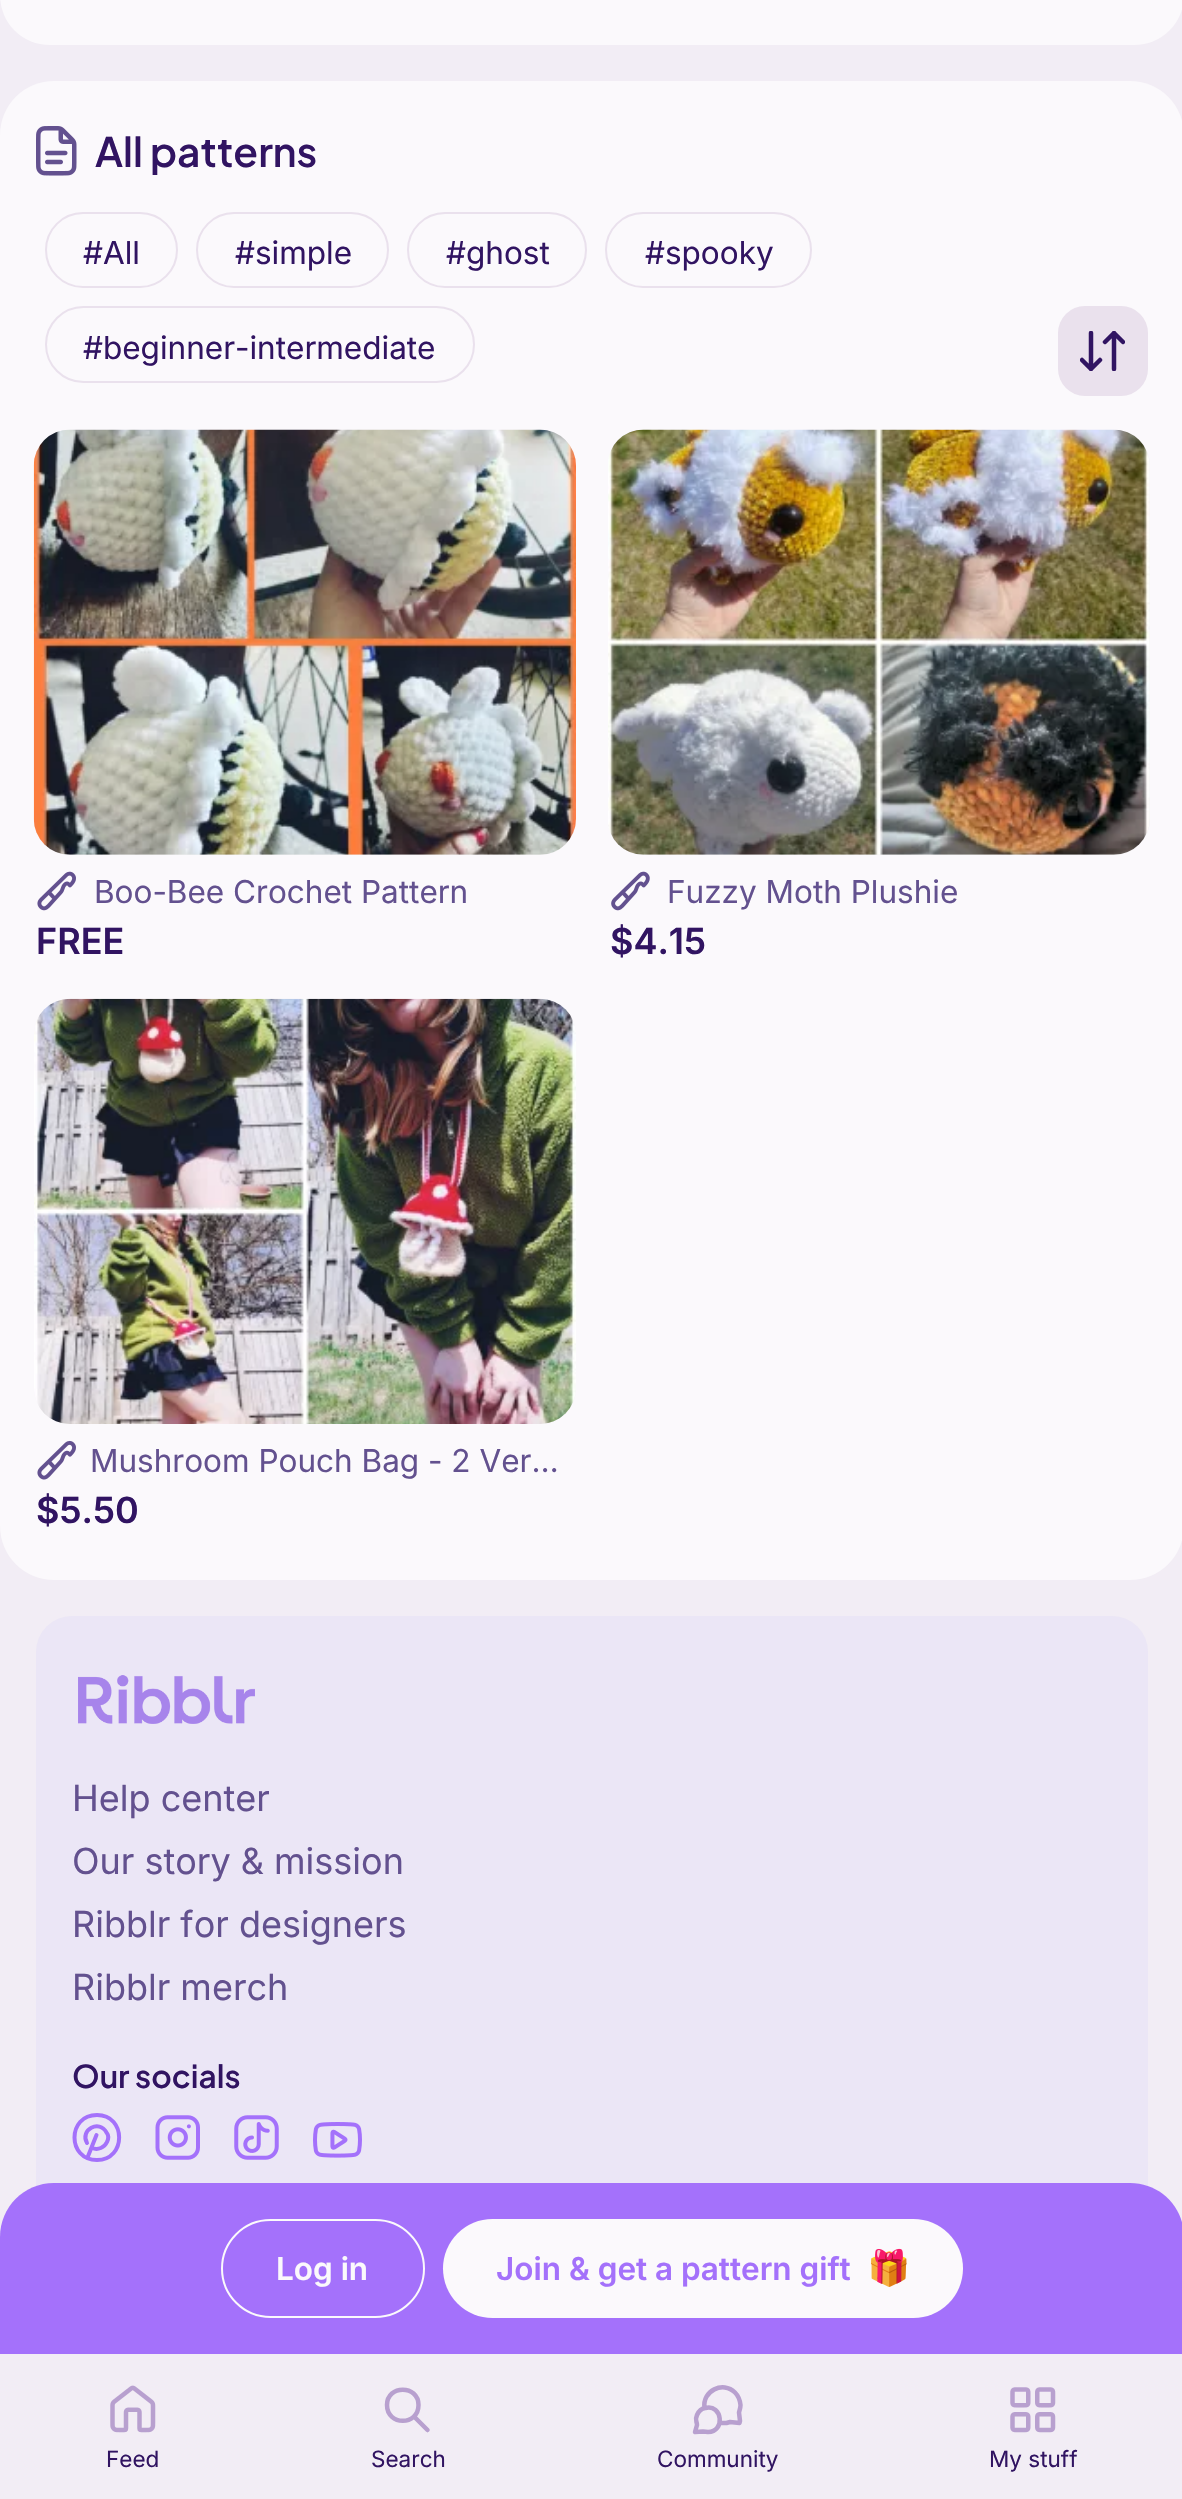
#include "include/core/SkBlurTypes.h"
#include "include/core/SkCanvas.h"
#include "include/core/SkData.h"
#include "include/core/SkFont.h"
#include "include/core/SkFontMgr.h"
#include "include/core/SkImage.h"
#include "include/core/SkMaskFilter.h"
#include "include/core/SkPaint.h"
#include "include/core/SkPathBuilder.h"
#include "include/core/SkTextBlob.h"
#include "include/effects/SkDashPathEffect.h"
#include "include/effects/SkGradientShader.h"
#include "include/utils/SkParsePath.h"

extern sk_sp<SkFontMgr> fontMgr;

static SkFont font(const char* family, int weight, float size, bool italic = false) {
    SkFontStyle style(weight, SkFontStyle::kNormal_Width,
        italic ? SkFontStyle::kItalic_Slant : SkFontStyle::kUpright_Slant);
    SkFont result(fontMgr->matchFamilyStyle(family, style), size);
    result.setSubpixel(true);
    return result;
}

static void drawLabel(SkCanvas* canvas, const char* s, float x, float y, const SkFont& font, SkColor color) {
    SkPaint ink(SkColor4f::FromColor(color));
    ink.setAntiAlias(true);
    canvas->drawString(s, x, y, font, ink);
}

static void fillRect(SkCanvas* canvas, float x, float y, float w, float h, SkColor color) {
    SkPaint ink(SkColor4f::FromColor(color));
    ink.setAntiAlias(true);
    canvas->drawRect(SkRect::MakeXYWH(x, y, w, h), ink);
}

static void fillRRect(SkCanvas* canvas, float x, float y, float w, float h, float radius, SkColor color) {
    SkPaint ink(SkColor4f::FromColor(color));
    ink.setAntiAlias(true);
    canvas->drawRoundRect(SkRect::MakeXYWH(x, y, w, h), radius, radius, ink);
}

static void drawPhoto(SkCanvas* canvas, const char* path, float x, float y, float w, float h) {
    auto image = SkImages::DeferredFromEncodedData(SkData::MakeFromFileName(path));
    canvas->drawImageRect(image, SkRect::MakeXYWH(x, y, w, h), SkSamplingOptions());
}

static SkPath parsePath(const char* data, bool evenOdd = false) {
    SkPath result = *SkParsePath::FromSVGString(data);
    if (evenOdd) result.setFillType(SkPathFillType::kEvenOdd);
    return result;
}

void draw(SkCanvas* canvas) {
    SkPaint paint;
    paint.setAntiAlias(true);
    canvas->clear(0xFFF2EDF5);
    fillRRect(canvas, 0, -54, 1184, 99, 54, 0xFFFBF9FC);
    fillRRect(canvas, 0, 81, 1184, 1499, 54, 0xFFFBF9FC);
    drawPhoto(canvas, "assets/img1.png", 36, 126, 41, 50);
    SkFont font1 = font("Plus Jakarta Sans", 600, 40.5f);
    drawLabel(canvas, "All patterns", 95, 167, font1, 0xFF311462);
    paint.setStroke(true);
    paint.setStrokeWidth(2);
    paint.setColor(0xFFEAE1ED);
    canvas->drawRoundRect(SkRect::MakeXYWH(46, 213, 131, 74), 37, 37, paint);
    SkFont font2 = font("Inter", 400, 31.5f);
    drawLabel(canvas, "#All", 83, 264, font2, 0xFF311462);
    canvas->drawRoundRect(SkRect::MakeXYWH(197, 213, 191, 74), 37, 37, paint);
    drawLabel(canvas, "#simple", 235, 264, font2, 0xFF311462);
    canvas->drawRoundRect(SkRect::MakeXYWH(408, 213, 178, 74), 37, 37, paint);
    drawLabel(canvas, "#ghost", 446, 264, font2, 0xFF311462);
    canvas->drawRoundRect(SkRect::MakeXYWH(606, 213, 205, 74), 37, 37, paint);
    drawLabel(canvas, "#spooky", 645, 264, font2, 0xFF311462);
    canvas->drawRoundRect(SkRect::MakeXYWH(46, 307, 428, 75), 37.5f, 37.5f, paint);
    drawLabel(canvas, "#beginner-intermediate", 83, 359, font2, 0xFF311462);
    fillRRect(canvas, 1058, 306, 90, 90, 27, 0xFFEAE1ED);
    canvas->save();
    canvas->clipRect(SkRect::MakeXYWH(1080, 331, 45, 40));
    paint.setStrokeWidth(4.5f);
    paint.setStrokeCap(SkPaint::kRound_Cap);
    paint.setStrokeJoin(SkPaint::kRound_Join);
    paint.setColor(0xFF311462);
    canvas->drawPath(parsePath("M1091 333V369M1091 369L1082 360M1091 369L1100 360M1114 369V333M1114 333L1105 342M1114 333L1123 342"), paint);
    canvas->restore();
    fillRRect(canvas, 34, 430, 542, 425, 36, 0xFFF0F0F0);
    drawPhoto(canvas, "assets/img2.png", 33, 429, 543, 426);
    drawPhoto(canvas, "assets/img3.png", 37, 871, 39, 40);
    drawLabel(canvas, "Boo-Bee Crochet Pattern", 94, 903, font2, 0xFF63518F);
    SkFont font3 = font("Inter", 600, 36);
    drawLabel(canvas, "FREE", 36, 954, font3, 0xFF311462);
    fillRRect(canvas, 608, 430, 542, 425, 36, 0xFFF0F0F0);
    drawPhoto(canvas, "assets/img4.png", 608, 429, 542, 426);
    drawPhoto(canvas, "assets/img5.png", 611, 871, 39, 40);
    drawLabel(canvas, "Fuzzy Moth Plushie", 667, 903, font2, 0xFF63518F);
    drawLabel(canvas, "$4.15", 610, 954, font3, 0xFF311462);
    fillRRect(canvas, 34, 999, 542, 425, 36, 0xFFF0F0F0);
    drawPhoto(canvas, "assets/img6.png", 34, 998, 542, 426);
    drawPhoto(canvas, "assets/img7.png", 37, 1440, 39, 40);
    drawLabel(canvas, "Mushroom Pouch Bag - 2 Ver…", 90, 1472, font2, 0xFF63518F);
    drawLabel(canvas, "$5.50", 36, 1523, font3, 0xFF311462);
    fillRRect(canvas, 36, 1616, 1112, 740, 36, 0xFFEBE6F6);
    drawPhoto(canvas, "assets/img8.png", 78, 1675, 177, 49);
    SkFont font4 = font("Inter", 400, 36);
    drawLabel(canvas, "Help center", 72, 1811, font4, 0xFF63518F);
    drawLabel(canvas, "Our story & mission", 72, 1874, font4, 0xFF63518F);
    drawLabel(canvas, "Ribblr for designers", 72, 1937, font4, 0xFF63518F);
    drawLabel(canvas, "Ribblr merch", 72, 2000, font4, 0xFF63518F);
    SkFont font5 = font("Plus Jakarta Sans", 600, 31.5f);
    drawLabel(canvas, "Our socials", 72, 2088, font5, 0xFF311462);
    paint.setStrokeWidth(4);
    paint.setColor(0xFFA471FB);
    canvas->drawPath(parsePath("M96.5 2135L87.5 2157.5M92 2148C98 2150.5 104.5 2147.5 107 2142C108.5 2139 108.5 2135 106.5 2132.5C99.5 2119 79.5 2130 87 2143M97 2160C126.5 2160 126.5 2115 97 2115C67 2115 67 2160 97 2160Z"), paint);
    drawPhoto(canvas, "assets/img9.png", 155, 2115, 45, 45);
    drawPhoto(canvas, "assets/img10.png", 234, 2115, 45, 45);
    drawPhoto(canvas, "assets/img11.png", 313, 2122, 49, 36);
    paint.setStroke(false);
    canvas->drawPath(parsePath("M54 2183H1130C1160 2183 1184 2207 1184 2237V2354H0V2237C0 2207 24 2183 54 2183Z"), paint);
    paint.setStroke(true);
    paint.setStrokeWidth(2);
    paint.setStrokeCap(SkPaint::kButt_Cap);
    paint.setStrokeJoin(SkPaint::kMiter_Join);
    paint.setColor(0xFFFBF9FC);
    canvas->drawRoundRect(SkRect::MakeXYWH(222, 2220, 202, 97), 48.5f, 48.5f, paint);
    SkFont font6 = font("Inter", 600, 31.5f);
    drawLabel(canvas, "Log in", 276, 2280, font6, 0xFFFBF9FC);
    fillRRect(canvas, 443, 2219, 520, 99, 49.5f, 0xFFFBF9FC);
    drawLabel(canvas, "Join & get a pattern gift", 496, 2280, font6, 0xFFA471FB);
    drawPhoto(canvas, "assets/img12.png", 871, 2248, 36, 39);
    fillRect(canvas, 61, 2354, 1062, 2, 0xFFF2EDF5);
    drawPhoto(canvas, "assets/img13.png", 110, 2385, 46, 48);
    SkFont font7 = font("Inter", 400, 22.5f);
    drawLabel(canvas, "Feed", 106, 2467, font7, 0xFF311462);
    paint.setStrokeWidth(4.5f);
    paint.setStrokeCap(SkPaint::kRound_Cap);
    paint.setStrokeJoin(SkPaint::kRound_Join);
    paint.setColor(0xFFB8A0CF);
    canvas->drawPath(parsePath("M427.5 2430L414 2416.5M418.5 2405C418.5 2426 387 2426 387 2405C387 2384.5 418.5 2384.5 418.5 2405Z"), paint);
    drawLabel(canvas, "Search", 371, 2467, font7, 0xFF311462);
    canvas->drawPath(parsePath("M704.5 2408C702 2391 723 2380.5 735 2392.5C738.5 2396 740 2400.5 740.5 2405C740.5 2408 739.5 2410 739 2412.5L740 2421L739.5 2423L730 2422L726.5 2423H719.5M708 2432C725.5 2432 722.5 2404 705.5 2408C701.5 2408.5 698.5 2411.5 697 2415C694.5 2420.5 697 2421 697 2425L695 2432L703 2431.5Z"), paint);
    drawLabel(canvas, "Community", 657, 2467, font7, 0xFF311462);
    drawPhoto(canvas, "assets/img14.png", 1010, 2387, 46, 46);
    drawLabel(canvas, "My stuff", 989, 2467, font7, 0xFF311462);
}
